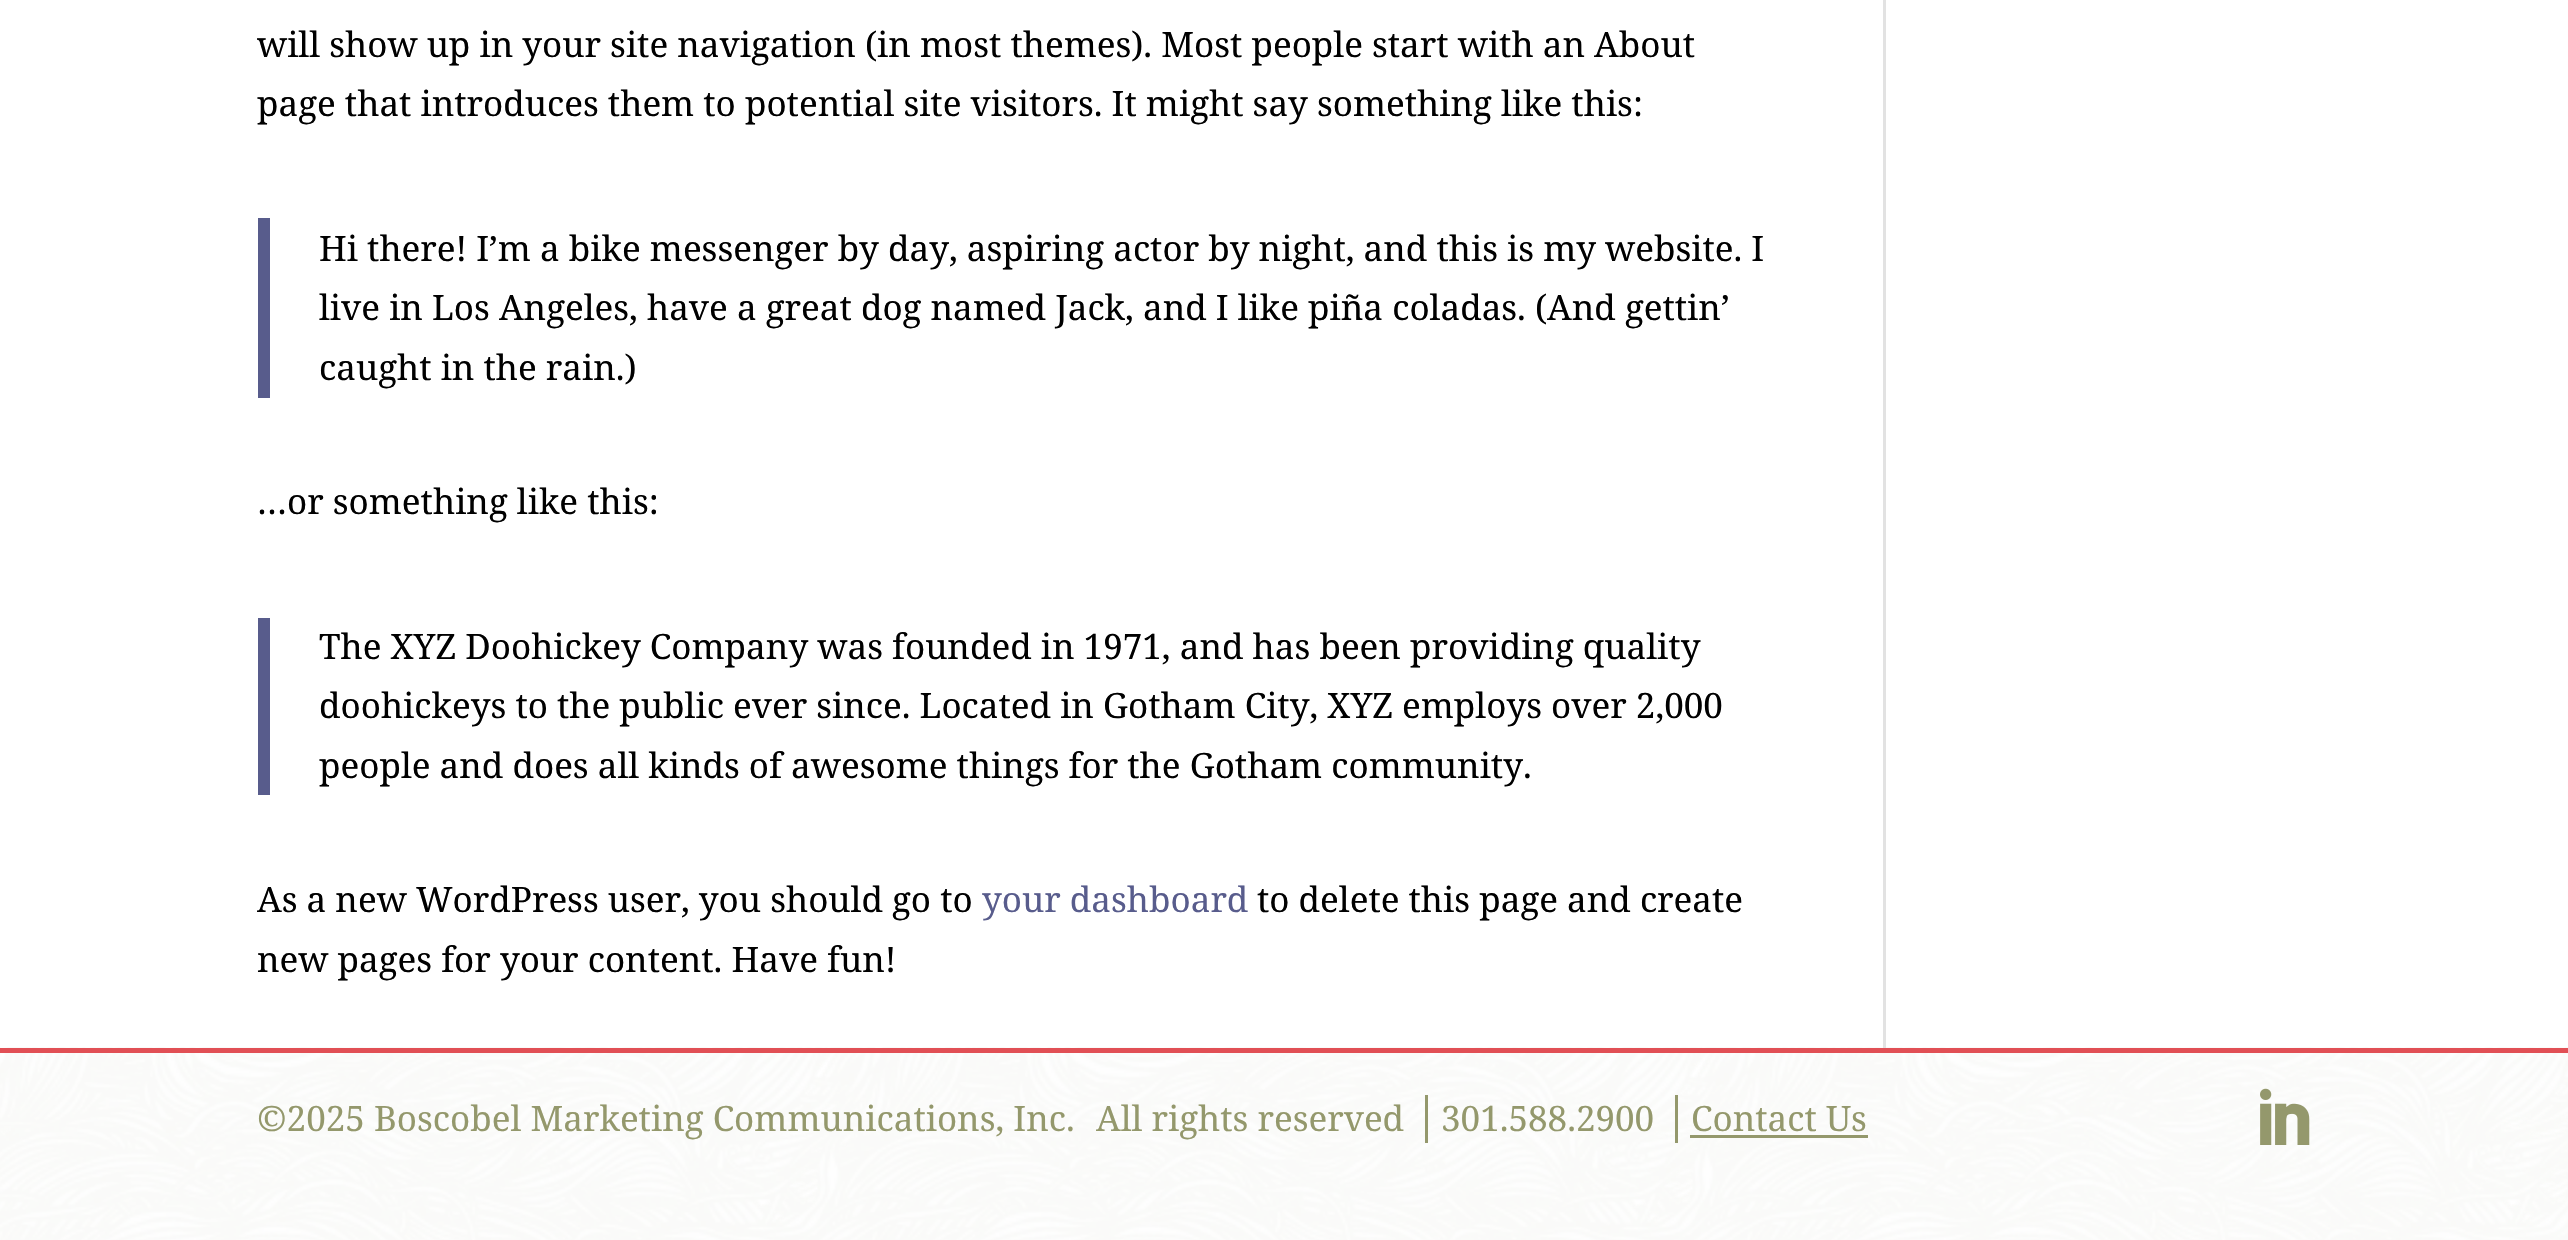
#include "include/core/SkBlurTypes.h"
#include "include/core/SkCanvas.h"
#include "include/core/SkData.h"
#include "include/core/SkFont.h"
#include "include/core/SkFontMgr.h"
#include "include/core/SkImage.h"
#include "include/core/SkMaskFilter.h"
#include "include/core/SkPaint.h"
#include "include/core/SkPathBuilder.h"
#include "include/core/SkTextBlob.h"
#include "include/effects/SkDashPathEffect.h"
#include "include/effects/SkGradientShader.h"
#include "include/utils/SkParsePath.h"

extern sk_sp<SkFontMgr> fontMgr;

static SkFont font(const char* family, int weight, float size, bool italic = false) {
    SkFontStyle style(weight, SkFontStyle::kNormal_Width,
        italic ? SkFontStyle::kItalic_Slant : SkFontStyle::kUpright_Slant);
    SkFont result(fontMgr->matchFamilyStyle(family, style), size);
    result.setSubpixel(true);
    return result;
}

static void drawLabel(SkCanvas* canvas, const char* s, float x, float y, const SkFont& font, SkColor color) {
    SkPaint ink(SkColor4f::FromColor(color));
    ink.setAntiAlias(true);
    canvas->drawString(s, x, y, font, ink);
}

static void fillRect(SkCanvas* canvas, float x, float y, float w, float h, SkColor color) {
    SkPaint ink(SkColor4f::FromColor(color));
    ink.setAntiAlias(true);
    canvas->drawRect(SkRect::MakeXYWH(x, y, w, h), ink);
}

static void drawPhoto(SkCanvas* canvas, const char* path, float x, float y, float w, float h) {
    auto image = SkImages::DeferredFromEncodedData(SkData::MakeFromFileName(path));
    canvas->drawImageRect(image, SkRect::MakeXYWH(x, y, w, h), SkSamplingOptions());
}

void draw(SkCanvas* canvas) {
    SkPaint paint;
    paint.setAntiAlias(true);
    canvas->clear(0xFFFFFFFF);
    SkFont font1 = font("Noto Serif", 400, 35);
    drawLabel(canvas, "will show up in your site navigation (in most themes). Most people start with an About", 257, 57, font1, 0xFF000000);
    drawLabel(canvas, "page that introduces them to potential site visitors. It might say something like this:", 257, 116, font1, 0xFF000000);
    fillRect(canvas, 258, 218, 12, 180, 0xFF585C8C);
    drawLabel(canvas, "Hi there! I’m a bike messenger by day, aspiring actor by night, and this is my website. I", 319, 261, font1, 0xFF000000);
    drawLabel(canvas, "live in Los Angeles, have a great dog named Jack, and I like piña coladas. (And gettin’", 319, 320, font1, 0xFF000000);
    drawLabel(canvas, "caught in the rain.)", 319, 380, font1, 0xFF000000);
    drawLabel(canvas, "…or something like this:", 257, 514, font1, 0xFF000000);
    fillRect(canvas, 258, 618, 12, 177, 0xFF585C8C);
    drawLabel(canvas, "The XYZ Doohickey Company was founded in 1971, and has been providing quality", 319, 659, font1, 0xFF000000);
    drawLabel(canvas, "doohickeys to the public ever since. Located in Gotham City, XYZ employs over 2,000", 319, 718, font1, 0xFF000000);
    drawLabel(canvas, "people and does all kinds of awesome things for the Gotham community.", 319, 778, font1, 0xFF000000);
    drawLabel(canvas, "As a new WordPress user, you should go to", 257, 912, font1, 0xFF000000);
    drawLabel(canvas, "your dashboard", 982, 912, font1, 0xFF585C8C);
    drawLabel(canvas, "to delete this page and create", 1257, 912, font1, 0xFF000000);
    drawLabel(canvas, "new pages for your content. Have fun!", 257, 972, font1, 0xFF000000);
    drawPhoto(canvas, "assets/img1.png", 0, 1047, 2568, 193);
    fillRect(canvas, 1883, 0, 3, 1048, 0xFFE2E2E2);
    fillRect(canvas, 0, 1048, 2568, 5, 0xFFE14F55);
    drawLabel(canvas, "©2025 Boscobel Marketing Communications, Inc.", 257, 1131, font1, 0xFF94986C);
    drawLabel(canvas, "All rights reserved", 1096, 1131, font1, 0xFF94986C);
    drawLabel(canvas, "301.588.2900", 1441, 1131, font1, 0xFF94986C);
    fillRect(canvas, 1425, 1095, 3, 48, 0xFF94986C);
    drawLabel(canvas, "Contact Us", 1691, 1131, font1, 0xFF94986C);
    fillRect(canvas, 1675, 1095, 3, 48, 0xFF94986C);
    fillRect(canvas, 1690, 1135, 178, 3, 0xFF94986C);
    drawPhoto(canvas, "assets/img2.png", 2260, 1088, 50, 57);
}
